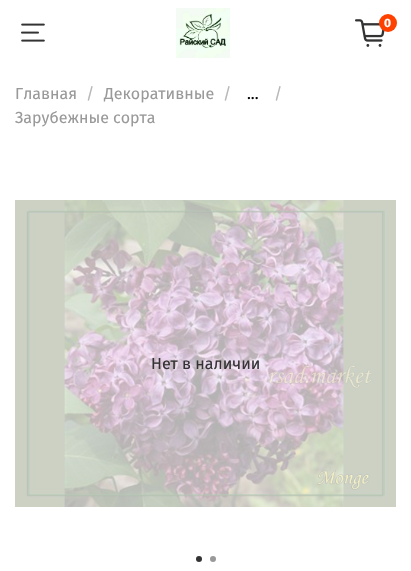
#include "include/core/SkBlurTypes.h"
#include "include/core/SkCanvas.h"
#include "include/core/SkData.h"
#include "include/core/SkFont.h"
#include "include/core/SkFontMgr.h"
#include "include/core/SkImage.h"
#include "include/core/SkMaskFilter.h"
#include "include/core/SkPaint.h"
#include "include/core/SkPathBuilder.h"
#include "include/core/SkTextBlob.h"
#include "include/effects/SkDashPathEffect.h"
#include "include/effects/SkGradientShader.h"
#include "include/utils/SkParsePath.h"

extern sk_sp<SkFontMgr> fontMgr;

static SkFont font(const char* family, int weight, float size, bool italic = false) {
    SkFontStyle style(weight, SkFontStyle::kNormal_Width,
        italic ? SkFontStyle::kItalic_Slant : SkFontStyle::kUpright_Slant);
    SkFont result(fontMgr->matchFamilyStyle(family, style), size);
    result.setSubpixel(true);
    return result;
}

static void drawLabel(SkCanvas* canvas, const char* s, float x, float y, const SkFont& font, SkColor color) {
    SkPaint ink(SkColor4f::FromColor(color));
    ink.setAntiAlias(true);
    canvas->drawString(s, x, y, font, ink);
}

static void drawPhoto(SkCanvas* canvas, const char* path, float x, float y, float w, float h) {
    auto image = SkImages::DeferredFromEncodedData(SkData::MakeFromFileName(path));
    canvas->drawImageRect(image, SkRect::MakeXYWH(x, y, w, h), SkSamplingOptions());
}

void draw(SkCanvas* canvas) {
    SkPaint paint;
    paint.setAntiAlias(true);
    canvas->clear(0xFFFFFFFF);
    drawPhoto(canvas, "assets/img1.png", 21, 23, 24, 19);
    drawPhoto(canvas, "assets/img2.png", 176, 8, 54, 50);
    drawPhoto(canvas, "assets/img3.png", 355, 19, 30, 28);
    paint.setColor(0xFFFF4100);
    canvas->drawCircle(388, 23, 9, paint);
    SkFont font1 = font("Fira Sans", 700, 12);
    drawLabel(canvas, "0", 384, 27, font1, 0xFFFFFFFF);
    SkFont font2 = font("Fira Sans", 400, 16);
    drawLabel(canvas, "Главная", 15, 99, font2, 0xFF999999);
    drawLabel(canvas, "/", 86, 99, font2, 0xFFB8B8B8);
    drawLabel(canvas, "Декоративные", 104, 99, font2, 0xFF999999);
    drawLabel(canvas, "/", 223, 99, font2, 0xFFB8B8B8);
    drawLabel(canvas, "...", 247, 99, font2, 0xFF000000);
    drawLabel(canvas, "/", 274, 99, font2, 0xFFB8B8B8);
    drawLabel(canvas, "Зарубежные сорта", 15, 123, font2, 0xFF999999);
    drawPhoto(canvas, "assets/img4.png", 15, 200, 381, 307);
    paint.setColor(0xFF333333);
    canvas->drawCircle(199, 559, 3, paint);
    paint.setColor(0xFF999999);
    canvas->drawCircle(213, 559, 3, paint);
    drawLabel(canvas, "Нет в наличии", 151, 369, font2, 0xFF333333);
}
